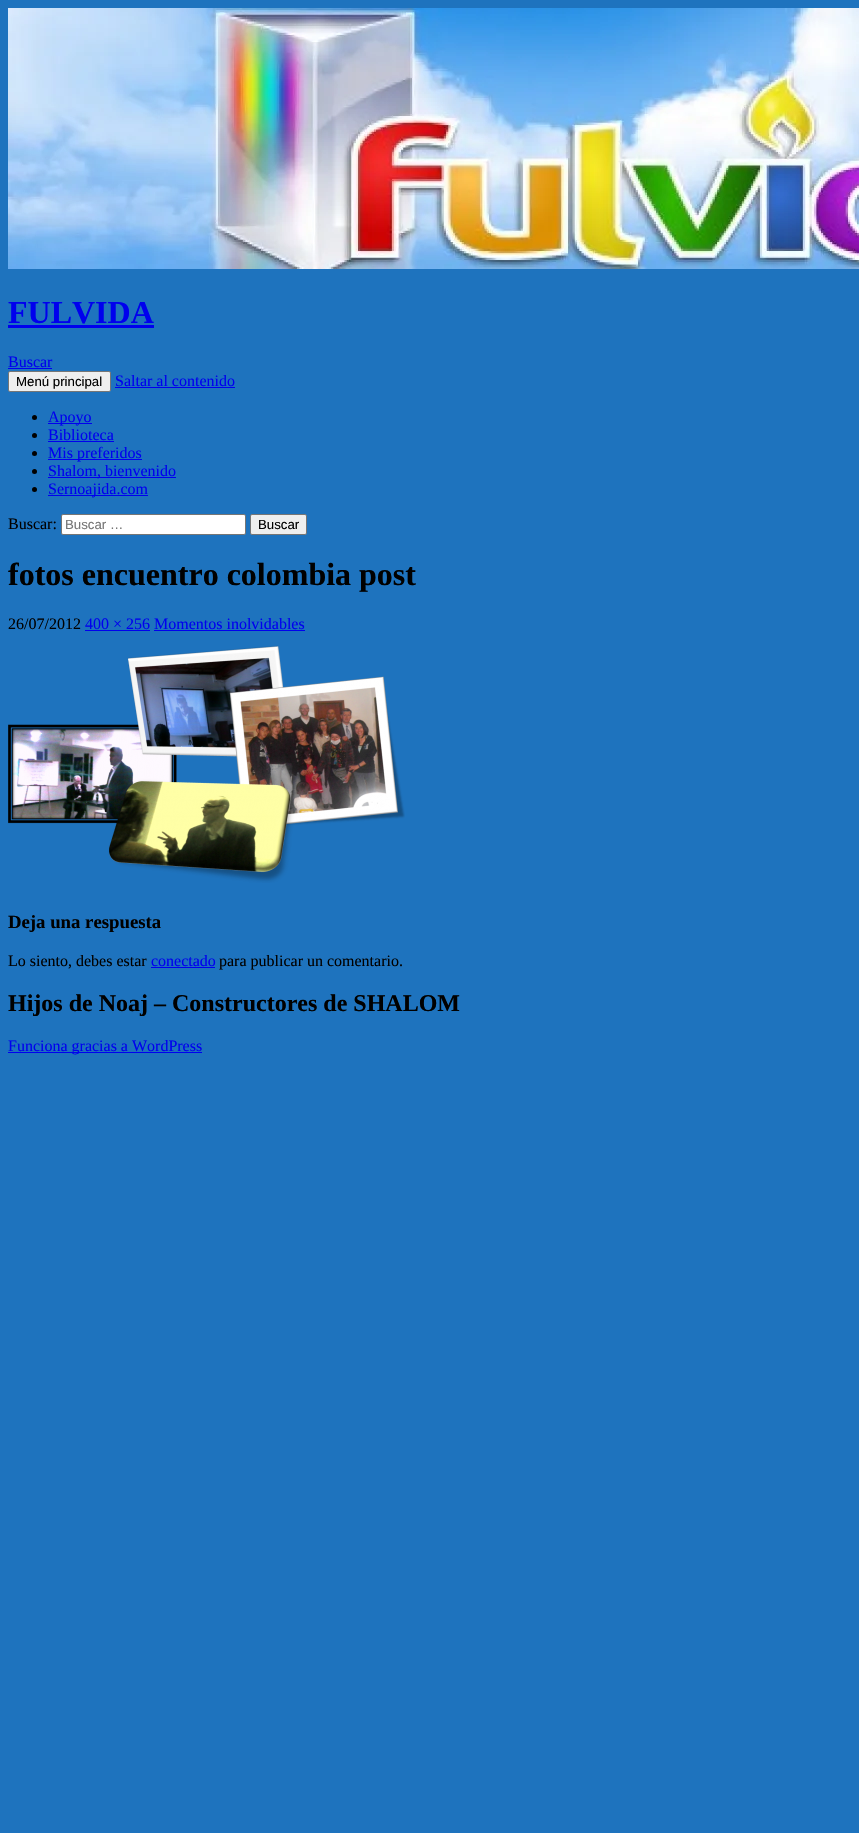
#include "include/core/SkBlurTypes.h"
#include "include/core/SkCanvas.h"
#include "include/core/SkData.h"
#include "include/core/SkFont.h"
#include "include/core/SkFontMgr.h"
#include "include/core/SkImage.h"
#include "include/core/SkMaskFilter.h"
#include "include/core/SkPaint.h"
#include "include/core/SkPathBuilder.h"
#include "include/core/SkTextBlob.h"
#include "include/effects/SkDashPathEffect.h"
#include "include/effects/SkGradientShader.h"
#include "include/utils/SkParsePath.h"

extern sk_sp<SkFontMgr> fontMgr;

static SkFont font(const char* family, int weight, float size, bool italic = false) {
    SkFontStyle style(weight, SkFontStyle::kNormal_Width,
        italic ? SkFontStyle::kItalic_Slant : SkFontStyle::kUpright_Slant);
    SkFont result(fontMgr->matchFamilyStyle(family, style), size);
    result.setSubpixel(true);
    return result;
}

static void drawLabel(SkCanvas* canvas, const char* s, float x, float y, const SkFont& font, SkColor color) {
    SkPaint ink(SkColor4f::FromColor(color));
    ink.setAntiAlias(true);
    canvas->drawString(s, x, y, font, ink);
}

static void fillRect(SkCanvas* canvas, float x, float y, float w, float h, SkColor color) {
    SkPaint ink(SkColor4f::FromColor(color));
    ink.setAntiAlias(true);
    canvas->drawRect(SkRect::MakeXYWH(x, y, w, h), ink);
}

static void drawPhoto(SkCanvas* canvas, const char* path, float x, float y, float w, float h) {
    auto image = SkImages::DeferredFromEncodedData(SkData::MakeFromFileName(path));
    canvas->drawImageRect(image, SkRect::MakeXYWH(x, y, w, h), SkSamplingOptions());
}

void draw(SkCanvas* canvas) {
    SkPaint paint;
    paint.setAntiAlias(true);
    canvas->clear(0xFF1E73BE);
    drawPhoto(canvas, "assets/img1.png", 8, 8, 851, 261);
    SkFont font1 = font("Liberation Serif", 700, 32);
    drawLabel(canvas, "FULVIDA", 8, 323, font1, 0xFF0000EE);
    fillRect(canvas, 8, 325, 146, 3, 0xFF0000EE);
    SkFont font2 = font("Liberation Serif", 400, 16);
    drawLabel(canvas, "Buscar", 8, 367, font2, 0xFF0000EE);
    fillRect(canvas, 8, 368, 44, 1, 0xFF0000EE);
    paint.setColor(0xFFEFEFEF);
    canvas->drawRoundRect(SkRect::MakeXYWH(8.5f, 371.5f, 102, 20), 1.5f, 1.5f, paint);
    paint.setStroke(true);
    paint.setStrokeWidth(1);
    paint.setColor(0xFF767676);
    canvas->drawRoundRect(SkRect::MakeXYWH(8.5f, 371.5f, 102, 20), 1.5f, 1.5f, paint);
    SkFont font3 = font("Liberation Sans", 400, 13.25f);
    drawLabel(canvas, "Menú principal", 16, 386, font3, 0xFF000000);
    drawLabel(canvas, "Saltar al contenido", 115, 386, font2, 0xFF0000EE);
    fillRect(canvas, 115, 387, 120, 1, 0xFF0000EE);
    paint.setStroke(false);
    paint.setColor(0xFF000000);
    canvas->drawCircle(34.5f, 417.5f, 2.5f, paint);
    fillRect(canvas, 48, 423, 44, 1, 0xFF0000EE);
    drawLabel(canvas, "Apoyo", 48, 422, font2, 0xFF0000EE);
    canvas->drawCircle(34.5f, 435.5f, 2.5f, paint);
    drawLabel(canvas, "Biblioteca", 48, 440, font2, 0xFF0000EE);
    fillRect(canvas, 48, 441, 66, 1, 0xFF0000EE);
    canvas->drawCircle(34.5f, 453.5f, 2.5f, paint);
    fillRect(canvas, 48, 459, 94, 1, 0xFF0000EE);
    drawLabel(canvas, "Mis preferidos", 48, 458, font2, 0xFF0000EE);
    canvas->drawCircle(34.5f, 471.5f, 2.5f, paint);
    fillRect(canvas, 48, 477, 128, 1, 0xFF0000EE);
    drawLabel(canvas, "Shalom, bienvenido", 48, 476, font2, 0xFF0000EE);
    canvas->drawCircle(34.5f, 489.5f, 2.5f, paint);
    fillRect(canvas, 48, 495, 100, 1, 0xFF0000EE);
    drawLabel(canvas, "Sernoajida.com", 48, 494, font2, 0xFF0000EE);
    drawLabel(canvas, "Buscar:", 8, 529, font2, 0xFF000000);
    paint.setColor(0xFFFFFFFF);
    canvas->drawRoundRect(SkRect::MakeXYWH(61.5f, 514.5f, 184, 20), 1.5f, 1.5f, paint);
    paint.setStroke(true);
    paint.setColor(0xFF767676);
    canvas->drawRoundRect(SkRect::MakeXYWH(61.5f, 514.5f, 184, 20), 1.5f, 1.5f, paint);
    drawLabel(canvas, "Buscar …", 65, 529, font3, 0xFF757575);
    paint.setStroke(false);
    paint.setColor(0xFFEFEFEF);
    canvas->drawRoundRect(SkRect::MakeXYWH(250.5f, 514.5f, 56, 20), 1.5f, 1.5f, paint);
    paint.setStroke(true);
    paint.setColor(0xFF767676);
    canvas->drawRoundRect(SkRect::MakeXYWH(250.5f, 514.5f, 56, 20), 1.5f, 1.5f, paint);
    drawLabel(canvas, "Buscar", 258, 529, font3, 0xFF000000);
    drawLabel(canvas, "fotos encuentro colombia post", 8, 585, font1, 0xFF000000);
    drawLabel(canvas, "26/07/2012", 8, 629, font2, 0xFF000000);
    drawLabel(canvas, "400 × 256 Momentos inolvidables", 85, 629, font2, 0xFF0000EE);
    fillRect(canvas, 85, 630, 65, 1, 0xFF0000EE);
    fillRect(canvas, 154, 630, 151, 1, 0xFF0000EE);
    drawPhoto(canvas, "assets/img2.png", 8, 645, 397, 238);
    SkFont font4 = font("Liberation Serif", 700, 18.75f);
    drawLabel(canvas, "Deja una respuesta", 8, 928, font4, 0xFF000000);
    drawLabel(canvas, "Lo siento, debes estar", 8, 966, font2, 0xFF000000);
    drawLabel(canvas, "conectado", 151, 966, font2, 0xFF0000EE);
    fillRect(canvas, 151, 967, 64, 1, 0xFF0000EE);
    drawLabel(canvas, "para publicar un comentario.", 219, 966, font2, 0xFF000000);
    SkFont font5 = font("Liberation Serif", 700, 24);
    drawLabel(canvas, "Hijos de Noaj – Constructores de SHALOM", 8, 1011, font5, 0xFF000000);
    fillRect(canvas, 8, 1052, 194, 1, 0xFF0000EE);
    drawLabel(canvas, "Funciona gracias a WordPress", 8, 1051, font2, 0xFF0000EE);
}
